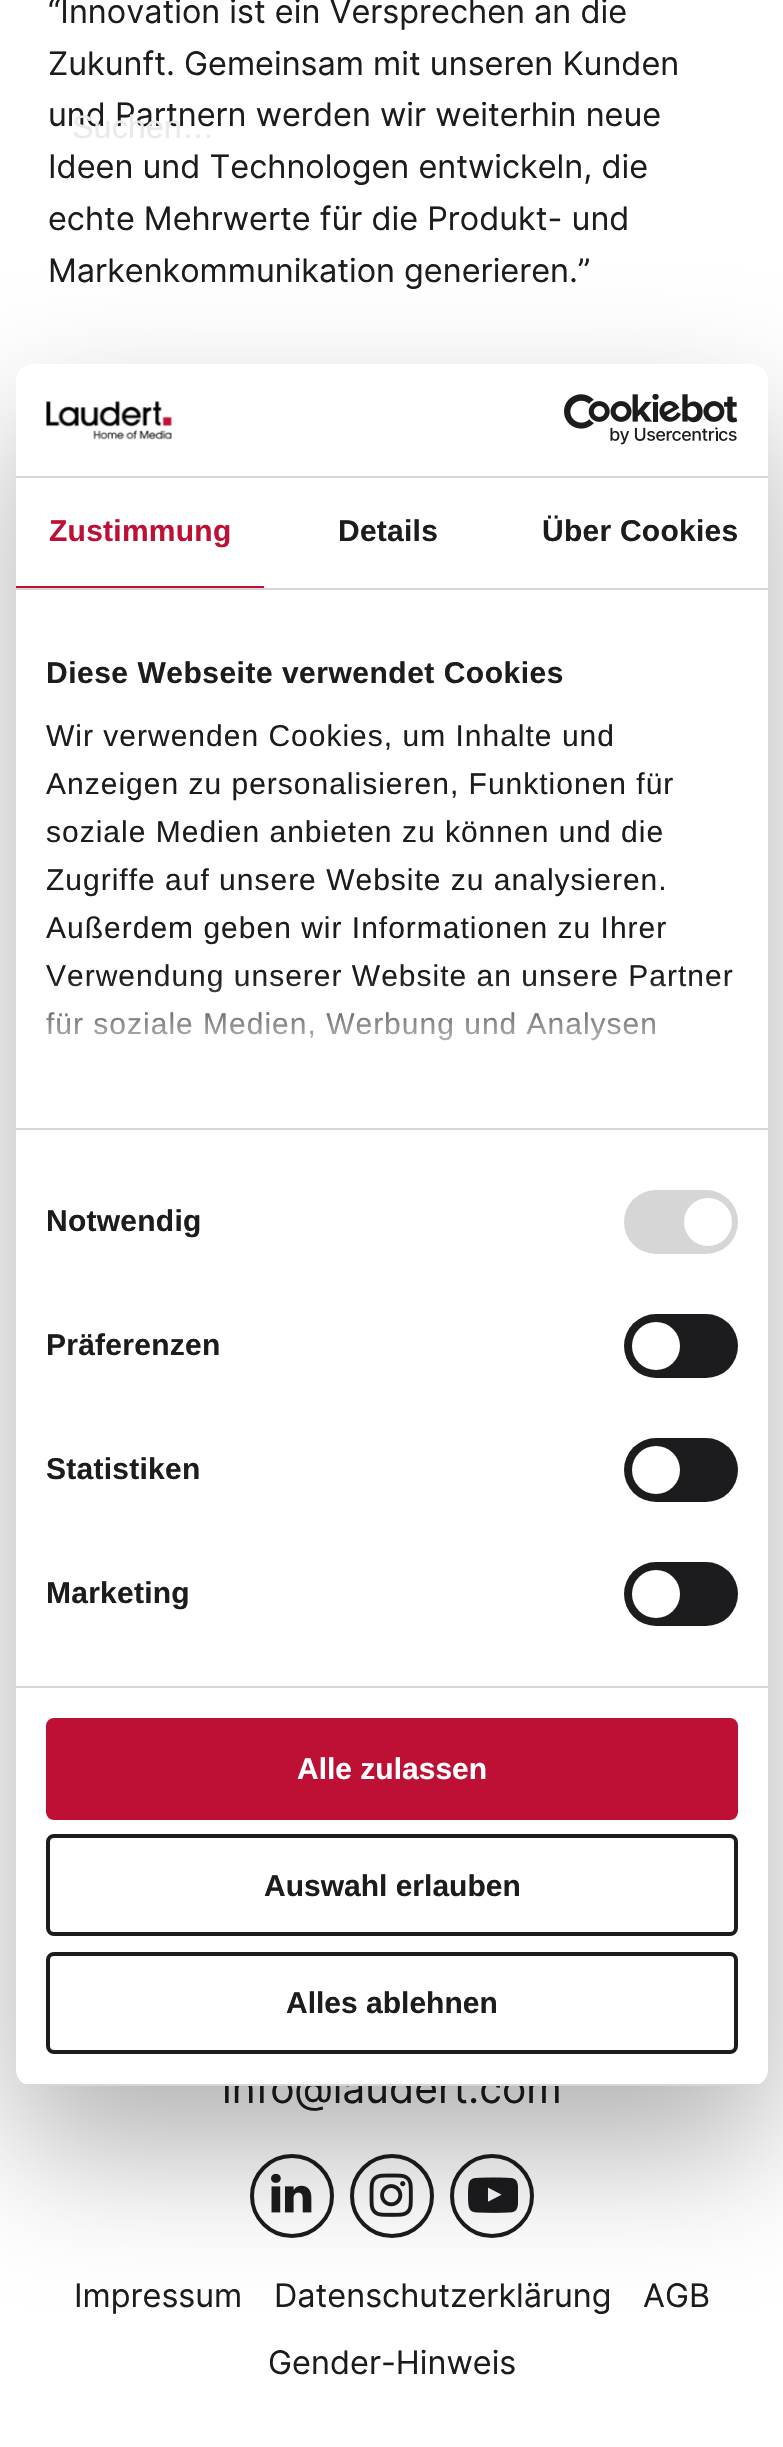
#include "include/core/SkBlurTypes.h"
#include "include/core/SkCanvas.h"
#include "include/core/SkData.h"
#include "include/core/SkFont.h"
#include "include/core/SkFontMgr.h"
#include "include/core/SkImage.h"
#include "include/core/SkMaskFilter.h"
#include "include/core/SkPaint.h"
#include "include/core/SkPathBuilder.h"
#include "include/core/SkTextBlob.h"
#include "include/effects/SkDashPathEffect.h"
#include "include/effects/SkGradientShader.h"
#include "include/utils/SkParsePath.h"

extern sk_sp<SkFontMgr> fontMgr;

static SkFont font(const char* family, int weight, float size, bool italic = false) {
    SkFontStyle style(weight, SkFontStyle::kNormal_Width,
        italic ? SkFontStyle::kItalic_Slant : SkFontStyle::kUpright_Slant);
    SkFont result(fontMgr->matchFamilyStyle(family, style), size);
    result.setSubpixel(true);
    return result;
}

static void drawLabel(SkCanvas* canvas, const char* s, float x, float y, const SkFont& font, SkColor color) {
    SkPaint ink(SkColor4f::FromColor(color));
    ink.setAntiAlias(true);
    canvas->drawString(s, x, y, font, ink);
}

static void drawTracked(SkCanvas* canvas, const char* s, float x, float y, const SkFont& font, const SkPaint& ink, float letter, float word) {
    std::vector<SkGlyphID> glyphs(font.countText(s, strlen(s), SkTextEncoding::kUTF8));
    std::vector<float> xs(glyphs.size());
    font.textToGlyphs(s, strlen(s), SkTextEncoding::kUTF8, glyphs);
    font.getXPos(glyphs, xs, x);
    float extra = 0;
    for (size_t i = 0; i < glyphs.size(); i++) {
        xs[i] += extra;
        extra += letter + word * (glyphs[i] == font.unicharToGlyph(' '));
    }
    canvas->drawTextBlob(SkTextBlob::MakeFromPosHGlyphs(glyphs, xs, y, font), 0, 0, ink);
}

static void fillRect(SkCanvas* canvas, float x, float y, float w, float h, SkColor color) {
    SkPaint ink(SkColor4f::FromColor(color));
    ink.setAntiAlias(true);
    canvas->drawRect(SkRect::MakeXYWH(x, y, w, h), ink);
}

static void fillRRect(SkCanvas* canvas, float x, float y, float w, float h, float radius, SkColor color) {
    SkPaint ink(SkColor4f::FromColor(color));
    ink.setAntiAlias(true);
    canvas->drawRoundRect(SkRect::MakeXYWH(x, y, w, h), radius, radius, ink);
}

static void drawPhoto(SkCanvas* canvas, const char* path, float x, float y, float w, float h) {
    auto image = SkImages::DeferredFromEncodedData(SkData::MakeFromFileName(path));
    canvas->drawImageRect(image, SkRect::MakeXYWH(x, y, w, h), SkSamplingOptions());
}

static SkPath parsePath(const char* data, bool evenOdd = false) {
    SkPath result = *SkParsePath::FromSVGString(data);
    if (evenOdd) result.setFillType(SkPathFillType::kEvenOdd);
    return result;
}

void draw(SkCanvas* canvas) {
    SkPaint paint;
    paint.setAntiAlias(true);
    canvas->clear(0xFFFFFFFF);
    SkFont font1 = font("Inter", 400, 32.4f);
    drawLabel(canvas, "“Innovation ist ein Versprechen an die", 48, 23, font1, 0xFF1C1C1E);
    drawLabel(canvas, "Zukunft. Gemeinsam mit unseren Kunden", 48, 75, font1, 0xFF1C1C1E);
    drawLabel(canvas, "und Partnern werden wir weiterhin neue", 48, 126, font1, 0xFF1C1C1E);
    drawLabel(canvas, "Ideen und Technologen entwickeln, die", 48, 178, font1, 0xFF1C1C1E);
    drawLabel(canvas, "echte Mehrwerte für die Produkt- und", 48, 230, font1, 0xFF1C1C1E);
    drawLabel(canvas, "Markenkommunikation generieren.”", 48, 282, font1, 0xFF1C1C1E);
    SkFont font2 = font("Liberation Sans", 400, 32.4f);
    drawLabel(canvas, "Suchen…", 72, 138, font2, 0xFFEAEAEA);
    SkFont font3 = font("Inter", 400, 40.75f);
    drawLabel(canvas, "info@laudert.com", 222, 2103, font3, 0xFF1C1C1E);
    paint.setStroke(true);
    paint.setStrokeWidth(4);
    paint.setColor(0xFF1C1C1E);
    canvas->drawCircle(292, 2196, 40, paint);
    drawPhoto(canvas, "assets/img1.png", 271, 2173, 41, 40);
    canvas->drawCircle(392, 2196, 40, paint);
    drawPhoto(canvas, "assets/img2.png", 369, 2173, 44, 44);
    canvas->drawCircle(492, 2196, 40, paint);
    drawPhoto(canvas, "assets/img3.png", 468, 2177, 50, 36);
    drawLabel(canvas, "Impressum", 74, 2307, font1, 0xFF1C1C1E);
    drawLabel(canvas, "Datenschutzerklärung", 274, 2307, font1, 0xFF1C1C1E);
    drawLabel(canvas, "AGB", 643, 2307, font1, 0xFF1C1C1E);
    drawLabel(canvas, "Gender-Hinweis", 268, 2374, font1, 0xFF1C1C1E);
    paint.setStroke(false);
    paint.setColor(0x4D000000);
    paint.setMaskFilter(SkMaskFilter::MakeBlur(kNormal_SkBlurStyle, 68));
    canvas->drawRoundRect(SkRect::MakeXYWH(16, 428, 752, 1722), 16, 16, paint);
    paint.setMaskFilter(nullptr);
    fillRRect(canvas, 16, 364, 752, 1722, 16, 0xFFFFFFFF);
    fillRect(canvas, 16, 476, 752, 2, 0xFFD6D6D6);
    drawPhoto(canvas, "assets/img4.png", 46, 401, 126, 39);
    drawPhoto(canvas, "assets/img5.png", 564, 394, 174, 51);
    fillRect(canvas, 16, 588, 752, 2, 0xFFD6D6D6);
    fillRect(canvas, 16, 586, 248, 2, 0xFFBE0F34);
    SkFont font4 = font("Liberation Sans", 700, 30);
    paint.setColor(0xFFBE0F34);
    drawTracked(canvas, "Zustimmung", 49, 541, font4, paint, 0.25f, 0);
    paint.setColor(0xFF1C1C1E);
    drawTracked(canvas, "Details", 338, 541, font4, paint, 0.25f, 0);
    drawTracked(canvas, "Über Cookies", 542, 541, font4, paint, 0.25f, 0);
    fillRect(canvas, 16, 1128, 752, 2, 0xFFD6D6D6);
    drawTracked(canvas, "Diese Webseite verwendet Cookies", 46, 683, font4, paint, 0.5f, 0);
    SkFont font5 = font("Liberation Sans", 400, 30);
    drawTracked(canvas, "Wir verwenden Cookies, um Inhalte und", 46, 746, font5, paint, 1, 0);
    drawTracked(canvas, "Anzeigen zu personalisieren, Funktionen für", 46, 794, font5, paint, 1, 0);
    drawTracked(canvas, "soziale Medien anbieten zu können und die", 46, 842, font5, paint, 1, 0);
    drawTracked(canvas, "Zugriffe auf unsere Website zu analysieren.", 46, 890, font5, paint, 1, 0);
    drawTracked(canvas, "Außerdem geben wir Informationen zu Ihrer", 46, 938, font5, paint, 1, 0);
    drawTracked(canvas, "Verwendung unserer Website an unsere Partner", 46, 986, font5, paint, 1, 0);
    drawTracked(canvas, "für soziale Medien, Werbung und Analysen", 46, 1034, font5, paint, 1, 0);
    {
        const SkColor colors[] = {0xFFFFFFFF, 0xCCFFFFFF, 0x00FFFFFF};
        const float stops[] = {0, 0.5f, 1};
        const SkPoint ends[] = {{379, 1128}, {379, 978}};
        paint.setShader(SkGradientShader::MakeLinear(ends, colors, stops, 3, SkTileMode::kClamp));
        paint.setAlpha(255);
    }
    canvas->drawRect(SkRect::MakeXYWH(46, 980, 682, 61), paint);
    fillRect(canvas, 16, 1686, 752, 2, 0xFFD6D6D6);
    paint.setShader(nullptr);
    paint.setColor(0xFF1C1C1E);
    drawTracked(canvas, "Notwendig", 46, 1231, font4, paint, 0.25f, 0);
    fillRRect(canvas, 624, 1190, 114, 64, 32, 0xFFD6D6D6);
    paint.setColor(0xFFFFFFFF);
    canvas->drawCircle(708, 1222, 24, paint);
    paint.setColor(0xFF1C1C1E);
    drawTracked(canvas, "Präferenzen", 46, 1355, font4, paint, 0.25f, 0);
    fillRRect(canvas, 624, 1314, 114, 64, 32, 0xFF1C1C1E);
    paint.setColor(0xFFFFFFFF);
    canvas->drawCircle(656, 1346, 24, paint);
    paint.setColor(0xFF1C1C1E);
    drawTracked(canvas, "Statistiken", 46, 1479, font4, paint, 0.25f, 0);
    fillRRect(canvas, 624, 1438, 114, 64, 32, 0xFF1C1C1E);
    paint.setColor(0xFFFFFFFF);
    canvas->drawCircle(656, 1470, 24, paint);
    paint.setColor(0xFF1C1C1E);
    drawTracked(canvas, "Marketing", 46, 1603, font4, paint, 0.25f, 0);
    fillRRect(canvas, 624, 1562, 114, 64, 32, 0xFF1C1C1E);
    paint.setColor(0xFFFFFFFF);
    canvas->drawCircle(656, 1594, 24, paint);
    canvas->save();
    canvas->clipPath(parsePath("M32 364H752C761 364 768 371 768 380V2070C768 2079 761 2086 752 2086H32C23 2086 16 2079 16 2070V380C16 371 23 364 32 364Z"), true);
    fillRect(canvas, 16, 2084, 752, 2, 0xFFD6D6D6);
    canvas->restore();
    paint.setColor(0xFFBE0F34);
    canvas->drawRoundRect(SkRect::MakeXYWH(48, 1720, 688, 98), 6, 6, paint);
    paint.setStroke(true);
    canvas->drawRoundRect(SkRect::MakeXYWH(48, 1720, 688, 98), 6, 6, paint);
    drawLabel(canvas, "Alle zulassen", 297, 1779, font4, 0xFFFFFFFF);
    paint.setColor(0xFF1C1C1E);
    canvas->drawRoundRect(SkRect::MakeXYWH(48, 1836, 688, 98), 6, 6, paint);
    drawLabel(canvas, "Auswahl erlauben", 264, 1896, font4, 0xFF1C1C1E);
    canvas->drawRoundRect(SkRect::MakeXYWH(48, 1954, 688, 98), 6, 6, paint);
    drawLabel(canvas, "Alles ablehnen", 286, 2013, font4, 0xFF1C1C1E);
}
